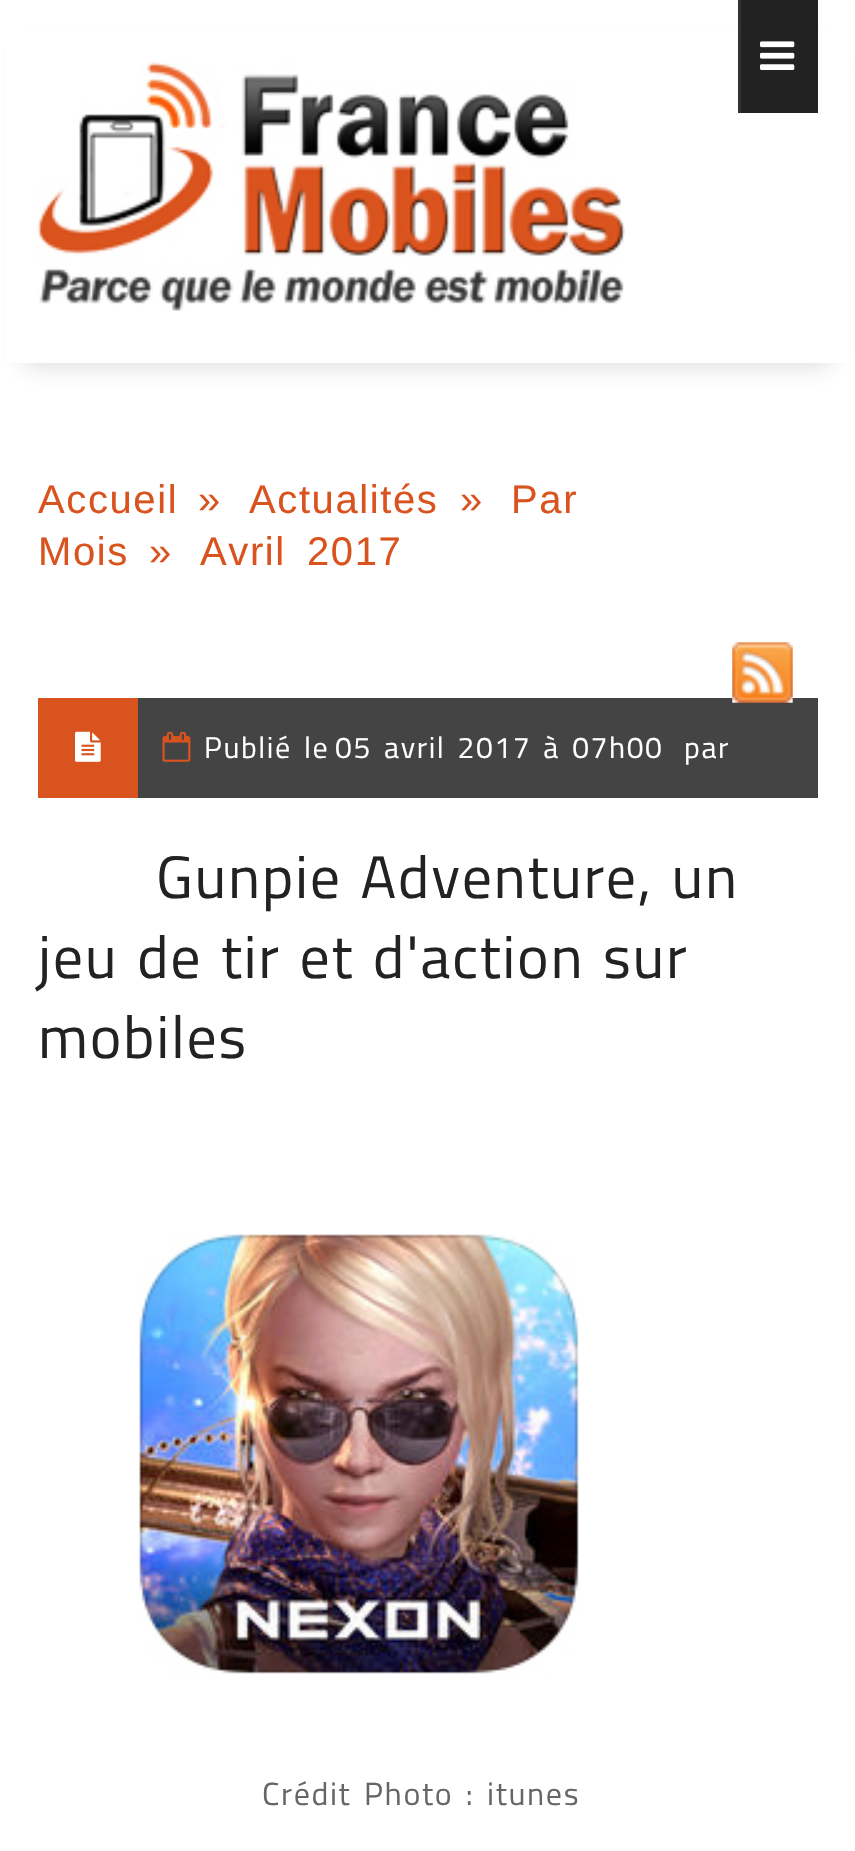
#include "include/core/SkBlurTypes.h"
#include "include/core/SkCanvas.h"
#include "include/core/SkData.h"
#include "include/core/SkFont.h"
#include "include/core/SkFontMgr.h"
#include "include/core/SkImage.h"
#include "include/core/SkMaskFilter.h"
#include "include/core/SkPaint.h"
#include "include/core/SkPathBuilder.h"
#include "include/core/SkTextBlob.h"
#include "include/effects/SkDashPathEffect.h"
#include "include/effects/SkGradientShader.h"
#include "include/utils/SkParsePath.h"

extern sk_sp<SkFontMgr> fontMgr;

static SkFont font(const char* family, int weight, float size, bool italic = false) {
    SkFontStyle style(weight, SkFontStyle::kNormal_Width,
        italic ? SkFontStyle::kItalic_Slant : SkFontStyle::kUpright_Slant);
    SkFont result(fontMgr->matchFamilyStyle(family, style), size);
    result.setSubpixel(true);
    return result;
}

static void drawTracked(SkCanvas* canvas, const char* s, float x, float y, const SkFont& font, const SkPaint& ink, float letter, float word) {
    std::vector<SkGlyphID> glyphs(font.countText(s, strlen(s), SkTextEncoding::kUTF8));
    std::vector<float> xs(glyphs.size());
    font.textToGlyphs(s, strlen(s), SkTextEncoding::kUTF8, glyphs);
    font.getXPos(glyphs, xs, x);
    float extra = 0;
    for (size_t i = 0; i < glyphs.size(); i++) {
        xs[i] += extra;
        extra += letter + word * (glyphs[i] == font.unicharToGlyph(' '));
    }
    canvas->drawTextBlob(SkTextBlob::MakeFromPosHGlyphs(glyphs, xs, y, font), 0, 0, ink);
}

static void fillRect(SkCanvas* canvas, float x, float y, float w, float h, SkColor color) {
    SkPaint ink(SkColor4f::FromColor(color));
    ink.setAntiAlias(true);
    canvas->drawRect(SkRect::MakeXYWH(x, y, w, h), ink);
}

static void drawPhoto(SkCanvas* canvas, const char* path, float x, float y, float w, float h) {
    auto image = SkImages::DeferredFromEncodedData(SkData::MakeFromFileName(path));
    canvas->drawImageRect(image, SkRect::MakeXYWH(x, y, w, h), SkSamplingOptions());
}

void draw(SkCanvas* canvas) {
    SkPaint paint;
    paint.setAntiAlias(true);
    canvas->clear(0xFFFFFFFF);
    paint.setColor(0x33222222);
    paint.setMaskFilter(SkMaskFilter::MakeBlur(kNormal_SkBlurStyle, 12.5f));
    canvas->drawRect(SkRect::MakeXYWH(25, 50, 805, 313), paint);
    paint.setMaskFilter(nullptr);
    fillRect(canvas, 6, 31, 843, 332, 0xFFFFFFFF);
    fillRect(canvas, 741, 0, 77, 113, 0xFF222222);
    fillRect(canvas, 738, 0, 3, 113, 0xFF333333);
    drawPhoto(canvas, "assets/img1.png", 760, 41, 35, 29);
    drawPhoto(canvas, "assets/img2.png", 37, 62, 588, 249);
    SkFont font1 = font("Liberation Sans", 400, 40);
    paint.setColor(0xFFD9531F);
    drawTracked(canvas, "Accueil", 38, 513, font1, paint, 1.6f, 0);
    drawTracked(canvas, "»", 198, 513, font1, paint, 1.6f, 0);
    drawTracked(canvas, "Actualités", 249, 513, font1, paint, 1.6f, 0);
    drawTracked(canvas, "»", 460, 513, font1, paint, 1.6f, 0);
    drawTracked(canvas, "Par", 511, 513, font1, paint, 1.6f, 0);
    drawTracked(canvas, "Mois", 38, 565, font1, paint, 1.6f, 0);
    drawTracked(canvas, "»", 149, 565, font1, paint, 1.6f, 0);
    drawTracked(canvas, "Avril", 200, 565, font1, paint, 1.6f, 0);
    drawTracked(canvas, "2017", 307, 565, font1, paint, 1.6f, 0);
    fillRect(canvas, 138, 698, 680, 100, 0xFF444444);
    drawPhoto(canvas, "assets/img3.png", 732, 642, 61, 61);
    drawPhoto(canvas, "assets/img4.png", 732, 642, 61, 61);
    fillRect(canvas, 38, 698, 100, 100, 0xFFD9531F);
    drawPhoto(canvas, "assets/img5.png", 75, 731, 26, 31);
    drawPhoto(canvas, "assets/img6.png", 162, 731, 29, 31);
    SkFont font2 = font("Titillium Web", 400, 30);
    paint.setColor(0xFFFFFFFF);
    drawTracked(canvas, "Publié le", 204, 758, font2, paint, 1.6f, 4);
    drawTracked(canvas, "05 avril 2017 à 07h00", 335, 758, font2, paint, 1.6f, 4);
    drawTracked(canvas, "par", 684, 758, font2, paint, 1.6f, 0);
    SkFont font3 = font("Titillium Web", 400, 60);
    paint.setColor(0xFF222222);
    drawTracked(canvas, "Gunpie Adventure, un", 156, 898, font3, paint, 1.6f, 4);
    drawTracked(canvas, "jeu de tir et d'action sur", 38, 978, font3, paint, 1.6f, 4);
    drawTracked(canvas, "mobiles", 38, 1058, font3, paint, 1.6f, 0);
    drawPhoto(canvas, "assets/img7.png", 136, 1234, 443, 440);
    SkFont font4 = font("Titillium Web", 400, 32);
    paint.setColor(0xFF666666);
    drawTracked(canvas, "Crédit Photo : itunes", 262, 1805, font4, paint, 1.6f, 4);
}
